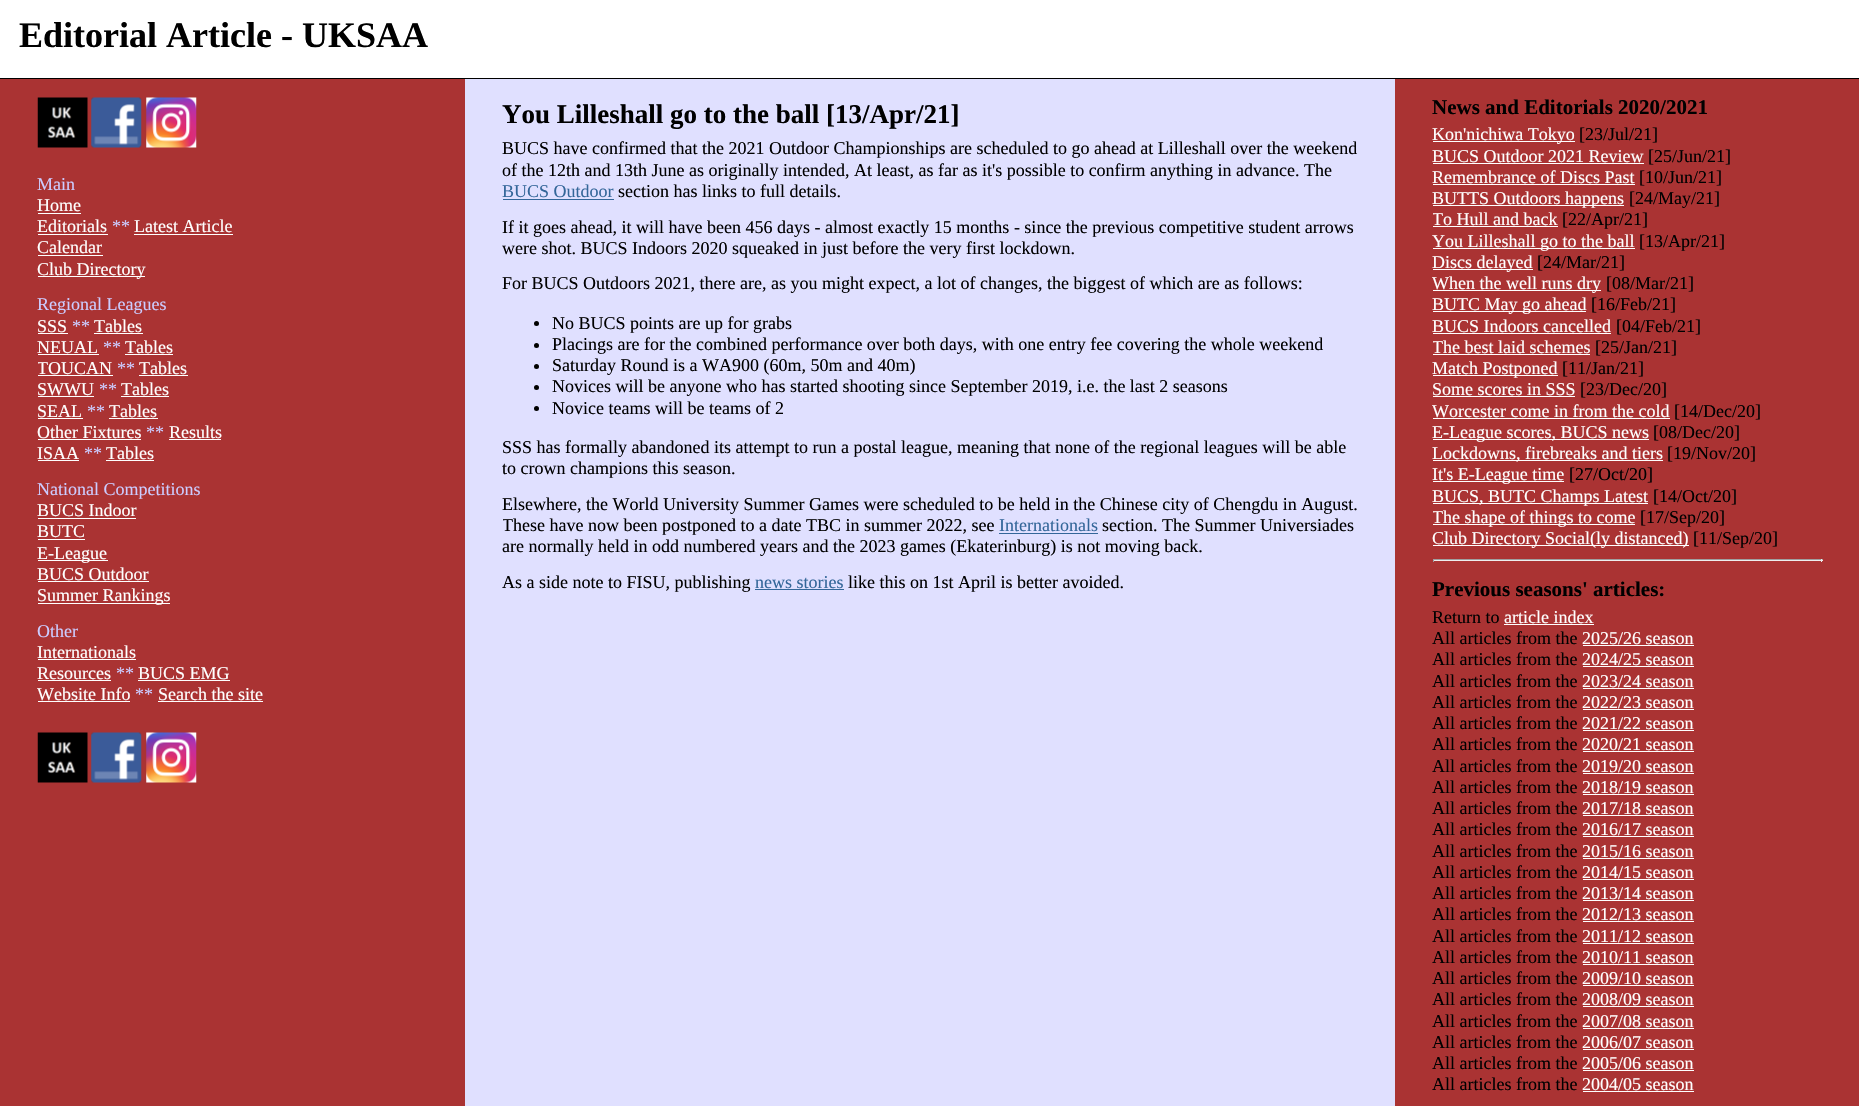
#include "include/core/SkBlurTypes.h"
#include "include/core/SkCanvas.h"
#include "include/core/SkData.h"
#include "include/core/SkFont.h"
#include "include/core/SkFontMgr.h"
#include "include/core/SkImage.h"
#include "include/core/SkMaskFilter.h"
#include "include/core/SkPaint.h"
#include "include/core/SkPathBuilder.h"
#include "include/core/SkTextBlob.h"
#include "include/effects/SkDashPathEffect.h"
#include "include/effects/SkGradientShader.h"
#include "include/utils/SkParsePath.h"

extern sk_sp<SkFontMgr> fontMgr;

static SkFont font(const char* family, int weight, float size, bool italic = false) {
    SkFontStyle style(weight, SkFontStyle::kNormal_Width,
        italic ? SkFontStyle::kItalic_Slant : SkFontStyle::kUpright_Slant);
    SkFont result(fontMgr->matchFamilyStyle(family, style), size);
    result.setSubpixel(true);
    return result;
}

static void drawLabel(SkCanvas* canvas, const char* s, float x, float y, const SkFont& font, SkColor color) {
    SkPaint ink(SkColor4f::FromColor(color));
    ink.setAntiAlias(true);
    canvas->drawString(s, x, y, font, ink);
}

static void fillRect(SkCanvas* canvas, float x, float y, float w, float h, SkColor color) {
    SkPaint ink(SkColor4f::FromColor(color));
    ink.setAntiAlias(true);
    canvas->drawRect(SkRect::MakeXYWH(x, y, w, h), ink);
}

static void drawPhoto(SkCanvas* canvas, const char* path, float x, float y, float w, float h) {
    auto image = SkImages::DeferredFromEncodedData(SkData::MakeFromFileName(path));
    canvas->drawImageRect(image, SkRect::MakeXYWH(x, y, w, h), SkSamplingOptions());
}

void draw(SkCanvas* canvas) {
    SkPaint paint;
    paint.setAntiAlias(true);
    canvas->clear(0xFFFFFFFF);
    fillRect(canvas, 0, 78, 1859, 1, 0xFF000000);
    SkFont font1 = font("Liberation Serif", 700, 36);
    drawLabel(canvas, "Editorial Article - UKSAA", 19, 47, font1, 0xFF000000);
    fillRect(canvas, 1395, 79, 464, 1027, 0xFFAA3333);
    fillRect(canvas, 465, 79, 930, 1027, 0xFFE0E0FF);
    fillRect(canvas, 0, 79, 465, 1027, 0xFFAA3333);
    drawPhoto(canvas, "assets/img1.png", 37, 97, 51, 51);
    drawPhoto(canvas, "assets/img2.png", 91, 97, 51, 51);
    drawPhoto(canvas, "assets/img3.png", 146, 97, 51, 51);
    SkFont font2 = font("Liberation Serif", 400, 18);
    drawLabel(canvas, "Main", 37, 190, font2, 0xFFCCCCFF);
    drawLabel(canvas, "Home", 37, 211, font2, 0xFFFFFFFF);
    fillRect(canvas, 38, 213, 43, 1, 0xFFFFFFFF);
    drawLabel(canvas, "Editorials", 37, 232, font2, 0xFFFFFFFF);
    fillRect(canvas, 38, 234, 70, 1, 0xFFFFFFFF);
    drawLabel(canvas, "**", 112, 232, font2, 0xFFCCCCFF);
    drawLabel(canvas, "Latest Article", 134, 232, font2, 0xFFFFFFFF);
    fillRect(canvas, 134, 234, 99, 1, 0xFFFFFFFF);
    drawLabel(canvas, "Calendar", 37, 253, font2, 0xFFFFFFFF);
    fillRect(canvas, 38, 255, 65, 1, 0xFFFFFFFF);
    fillRect(canvas, 38, 276, 107, 1, 0xFFFFFFFF);
    drawLabel(canvas, "Club Directory", 37, 275, font2, 0xFFFFFFFF);
    drawLabel(canvas, "Regional Leagues", 37, 310, font2, 0xFFCCCCFF);
    drawLabel(canvas, "SSS", 37, 332, font2, 0xFFFFFFFF);
    fillRect(canvas, 38, 333, 30, 1, 0xFFFFFFFF);
    drawLabel(canvas, "**", 72, 332, font2, 0xFFCCCCFF);
    drawLabel(canvas, "Tables", 94, 332, font2, 0xFFFFFFFF);
    fillRect(canvas, 94, 333, 49, 1, 0xFFFFFFFF);
    drawLabel(canvas, "NEUAL", 37, 353, font2, 0xFFFFFFFF);
    fillRect(canvas, 38, 354, 61, 1, 0xFFFFFFFF);
    drawLabel(canvas, "**", 103, 353, font2, 0xFFCCCCFF);
    drawLabel(canvas, "Tables", 125, 353, font2, 0xFFFFFFFF);
    fillRect(canvas, 125, 354, 48, 1, 0xFFFFFFFF);
    canvas->save();
    canvas->clipRect(SkRect::MakeXYWH(38, 79, 390, 747));
    drawLabel(canvas, "TOUCAN", 37, 374, font2, 0xFFFFFFFF);
    canvas->restore();
    fillRect(canvas, 38, 375, 75, 1, 0xFFFFFFFF);
    drawLabel(canvas, "**", 117, 374, font2, 0xFFCCCCFF);
    drawLabel(canvas, "Tables", 139, 374, font2, 0xFFFFFFFF);
    fillRect(canvas, 139, 375, 49, 1, 0xFFFFFFFF);
    drawLabel(canvas, "SWWU", 37, 395, font2, 0xFFFFFFFF);
    fillRect(canvas, 38, 396, 56, 1, 0xFFFFFFFF);
    drawLabel(canvas, "**", 99, 395, font2, 0xFFCCCCFF);
    drawLabel(canvas, "Tables", 121, 395, font2, 0xFFFFFFFF);
    fillRect(canvas, 121, 396, 48, 1, 0xFFFFFFFF);
    drawLabel(canvas, "SEAL", 37, 417, font2, 0xFFFFFFFF);
    fillRect(canvas, 38, 418, 45, 1, 0xFFFFFFFF);
    drawLabel(canvas, "**", 87, 417, font2, 0xFFCCCCFF);
    drawLabel(canvas, "Tables", 109, 417, font2, 0xFFFFFFFF);
    fillRect(canvas, 109, 418, 49, 1, 0xFFFFFFFF);
    drawLabel(canvas, "Other Fixtures", 37, 438, font2, 0xFFFFFFFF);
    fillRect(canvas, 38, 439, 103, 1, 0xFFFFFFFF);
    drawLabel(canvas, "**", 146, 438, font2, 0xFFCCCCFF);
    drawLabel(canvas, "Results", 169, 438, font2, 0xFFFFFFFF);
    fillRect(canvas, 169, 439, 52, 1, 0xFFFFFFFF);
    drawLabel(canvas, "ISAA", 37, 459, font2, 0xFFFFFFFF);
    fillRect(canvas, 38, 460, 41, 1, 0xFFFFFFFF);
    drawLabel(canvas, "**", 84, 459, font2, 0xFFCCCCFF);
    drawLabel(canvas, "Tables", 106, 459, font2, 0xFFFFFFFF);
    fillRect(canvas, 106, 460, 48, 1, 0xFFFFFFFF);
    drawLabel(canvas, "National Competitions", 37, 495, font2, 0xFFCCCCFF);
    drawLabel(canvas, "BUCS Indoor", 37, 516, font2, 0xFFFFFFFF);
    fillRect(canvas, 38, 518, 98, 1, 0xFFFFFFFF);
    drawLabel(canvas, "BUTC", 37, 537, font2, 0xFFFFFFFF);
    fillRect(canvas, 38, 539, 47, 1, 0xFFFFFFFF);
    fillRect(canvas, 38, 560, 70, 1, 0xFFFFFFFF);
    drawLabel(canvas, "E-League", 37, 559, font2, 0xFFFFFFFF);
    drawLabel(canvas, "BUCS Outdoor", 37, 580, font2, 0xFFFFFFFF);
    fillRect(canvas, 38, 581, 111, 1, 0xFFFFFFFF);
    fillRect(canvas, 38, 603, 132, 1, 0xFFFFFFFF);
    drawLabel(canvas, "Summer Rankings", 37, 601, font2, 0xFFFFFFFF);
    drawLabel(canvas, "Other", 37, 637, font2, 0xFFCCCCFF);
    drawLabel(canvas, "Internationals", 37, 658, font2, 0xFFFFFFFF);
    fillRect(canvas, 38, 659, 98, 1, 0xFFFFFFFF);
    drawLabel(canvas, "Resources", 37, 679, font2, 0xFFFFFFFF);
    fillRect(canvas, 38, 680, 73, 1, 0xFFFFFFFF);
    drawLabel(canvas, "**", 116, 679, font2, 0xFFCCCCFF);
    drawLabel(canvas, "BUCS EMG", 138, 679, font2, 0xFFFFFFFF);
    fillRect(canvas, 138, 680, 92, 1, 0xFFFFFFFF);
    drawLabel(canvas, "Website Info", 37, 700, font2, 0xFFFFFFFF);
    fillRect(canvas, 38, 701, 92, 1, 0xFFFFFFFF);
    drawLabel(canvas, "**", 135, 700, font2, 0xFFCCCCFF);
    drawLabel(canvas, "Search the site", 158, 700, font2, 0xFFFFFFFF);
    fillRect(canvas, 158, 701, 105, 1, 0xFFFFFFFF);
    drawPhoto(canvas, "assets/img1.png", 37, 732, 51, 51);
    drawPhoto(canvas, "assets/img2.png", 91, 732, 51, 51);
    drawPhoto(canvas, "assets/img3.png", 146, 732, 51, 51);
    SkFont font3 = font("Liberation Serif", 700, 27);
    drawLabel(canvas, "You Lilleshall go to the ball [13/Apr/21]", 502, 123, font3, 0xFF000000);
    drawLabel(canvas, "BUCS have confirmed that the 2021 Outdoor Championships are scheduled to go ahead at Lilleshall over the weekend", 502, 154, font2, 0xFF000000);
    drawLabel(canvas, "of the 12th and 13th June as originally intended, At least, as far as it's possible to confirm anything in advance. The", 502, 176, font2, 0xFF000000);
    drawLabel(canvas, "BUCS Outdoor", 502, 197, font2, 0xFF336699);
    fillRect(canvas, 503, 199, 111, 1, 0xFF336699);
    drawLabel(canvas, "section has links to full details.", 618, 197, font2, 0xFF000000);
    drawLabel(canvas, "If it goes ahead, it will have been 456 days - almost exactly 15 months - since the previous competitive student arrows", 502, 233, font2, 0xFF000000);
    drawLabel(canvas, "were shot. BUCS Indoors 2020 squeaked in just before the very first lockdown.", 502, 254, font2, 0xFF000000);
    drawLabel(canvas, "For BUCS Outdoors 2021, there are, as you might expect, a lot of changes, the biggest of which are as follows:", 502, 289, font2, 0xFF000000);
    paint.setColor(0xFF000000);
    canvas->drawCircle(536.5f, 323.5f, 2.5f, paint);
    drawLabel(canvas, "No BUCS points are up for grabs", 552, 329, font2, 0xFF000000);
    canvas->drawCircle(536.5f, 345.5f, 2.5f, paint);
    drawLabel(canvas, "Placings are for the combined performance over both days, with one entry fee covering the whole weekend", 552, 350, font2, 0xFF000000);
    canvas->drawCircle(536.5f, 366.5f, 2.5f, paint);
    drawLabel(canvas, "Saturday Round is a WA900 (60m, 50m and 40m)", 552, 371, font2, 0xFF000000);
    canvas->drawCircle(536.5f, 387.5f, 2.5f, paint);
    drawLabel(canvas, "Novices will be anyone who has started shooting since September 2019, i.e. the last 2 seasons", 552, 392, font2, 0xFF000000);
    canvas->drawCircle(536.5f, 408.5f, 2.5f, paint);
    drawLabel(canvas, "Novice teams will be teams of 2", 552, 414, font2, 0xFF000000);
    drawLabel(canvas, "SSS has formally abandoned its attempt to run a postal league, meaning that none of the regional leagues will be able", 502, 453, font2, 0xFF000000);
    drawLabel(canvas, "to crown champions this season.", 502, 474, font2, 0xFF000000);
    drawLabel(canvas, "Elsewhere, the World University Summer Games were scheduled to be held in the Chinese city of Chengdu in August.", 502, 510, font2, 0xFF000000);
    canvas->save();
    canvas->clipRect(SkRect::MakeXYWH(503, 79, 855, 546));
    drawLabel(canvas, "These have now been postponed to a date TBC in summer 2022, see", 502, 531, font2, 0xFF000000);
    canvas->restore();
    drawLabel(canvas, "Internationals", 999, 531, font2, 0xFF336699);
    fillRect(canvas, 999, 533, 99, 1, 0xFF336699);
    drawLabel(canvas, "section. The Summer Universiades", 1102, 531, font2, 0xFF000000);
    drawLabel(canvas, "are normally held in odd numbered years and the 2023 games (Ekaterinburg) is not moving back.", 502, 552, font2, 0xFF000000);
    drawLabel(canvas, "As a side note to FISU, publishing", 502, 588, font2, 0xFF000000);
    drawLabel(canvas, "news stories", 755, 588, font2, 0xFF336699);
    fillRect(canvas, 755, 589, 89, 1, 0xFF336699);
    drawLabel(canvas, "like this on 1st April is better avoided.", 848, 588, font2, 0xFF000000);
    SkFont font4 = font("Liberation Serif", 700, 21);
    drawLabel(canvas, "News and Editorials 2020/2021", 1432, 114, font4, 0xFF000000);
    fillRect(canvas, 1433, 141, 142, 1, 0xFFFFFFFF);
    drawLabel(canvas, "Kon'nichiwa Tokyo", 1432, 140, font2, 0xFFFFFFFF);
    drawLabel(canvas, "[23/Jul/21]", 1579, 140, font2, 0xFF000000);
    drawLabel(canvas, "BUCS Outdoor 2021 Review", 1432, 162, font2, 0xFFFFFFFF);
    fillRect(canvas, 1433, 163, 211, 1, 0xFFFFFFFF);
    drawLabel(canvas, "[25/Jun/21]", 1648, 162, font2, 0xFF000000);
    drawLabel(canvas, "Remembrance of Discs Past", 1432, 183, font2, 0xFFFFFFFF);
    fillRect(canvas, 1433, 184, 202, 1, 0xFFFFFFFF);
    drawLabel(canvas, "[10/Jun/21]", 1639, 183, font2, 0xFF000000);
    fillRect(canvas, 1433, 205, 191, 1, 0xFFFFFFFF);
    drawLabel(canvas, "BUTTS Outdoors happens", 1432, 204, font2, 0xFFFFFFFF);
    drawLabel(canvas, "[24/May/21]", 1629, 204, font2, 0xFF000000);
    canvas->save();
    canvas->clipRect(SkRect::MakeXYWH(1433, 79, 390, 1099));
    drawLabel(canvas, "To Hull and back", 1432, 225, font2, 0xFFFFFFFF);
    canvas->restore();
    fillRect(canvas, 1433, 226, 125, 1, 0xFFFFFFFF);
    drawLabel(canvas, "[22/Apr/21]", 1562, 225, font2, 0xFF000000);
    fillRect(canvas, 1433, 248, 202, 1, 0xFFFFFFFF);
    drawLabel(canvas, "You Lilleshall go to the ball", 1432, 247, font2, 0xFFFFFFFF);
    drawLabel(canvas, "[13/Apr/21]", 1639, 247, font2, 0xFF000000);
    fillRect(canvas, 1433, 269, 100, 1, 0xFFFFFFFF);
    drawLabel(canvas, "Discs delayed", 1432, 268, font2, 0xFFFFFFFF);
    drawLabel(canvas, "[24/Mar/21]", 1537, 268, font2, 0xFF000000);
    fillRect(canvas, 1433, 290, 168, 1, 0xFFFFFFFF);
    drawLabel(canvas, "When the well runs dry", 1432, 289, font2, 0xFFFFFFFF);
    drawLabel(canvas, "[08/Mar/21]", 1606, 289, font2, 0xFF000000);
    fillRect(canvas, 1433, 311, 153, 1, 0xFFFFFFFF);
    drawLabel(canvas, "BUTC May go ahead", 1432, 310, font2, 0xFFFFFFFF);
    drawLabel(canvas, "[16/Feb/21]", 1591, 310, font2, 0xFF000000);
    drawLabel(canvas, "BUCS Indoors cancelled", 1432, 332, font2, 0xFFFFFFFF);
    fillRect(canvas, 1433, 333, 178, 1, 0xFFFFFFFF);
    drawLabel(canvas, "[04/Feb/21]", 1616, 332, font2, 0xFF000000);
    canvas->save();
    canvas->clipRect(SkRect::MakeXYWH(1433, 79, 390, 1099));
    drawLabel(canvas, "The best laid schemes", 1432, 353, font2, 0xFFFFFFFF);
    canvas->restore();
    fillRect(canvas, 1433, 354, 157, 1, 0xFFFFFFFF);
    drawLabel(canvas, "[25/Jan/21]", 1595, 353, font2, 0xFF000000);
    fillRect(canvas, 1433, 375, 125, 1, 0xFFFFFFFF);
    drawLabel(canvas, "Match Postponed", 1432, 374, font2, 0xFFFFFFFF);
    drawLabel(canvas, "[11/Jan/21]", 1562, 374, font2, 0xFF000000);
    drawLabel(canvas, "Some scores in SSS", 1432, 395, font2, 0xFFFFFFFF);
    fillRect(canvas, 1433, 396, 142, 1, 0xFFFFFFFF);
    drawLabel(canvas, "[23/Dec/20]", 1580, 395, font2, 0xFF000000);
    drawLabel(canvas, "Worcester come in from the cold", 1432, 417, font2, 0xFFFFFFFF);
    fillRect(canvas, 1433, 418, 237, 1, 0xFFFFFFFF);
    drawLabel(canvas, "[14/Dec/20]", 1674, 417, font2, 0xFF000000);
    fillRect(canvas, 1433, 439, 216, 1, 0xFFFFFFFF);
    drawLabel(canvas, "E-League scores, BUCS news", 1432, 438, font2, 0xFFFFFFFF);
    drawLabel(canvas, "[08/Dec/20]", 1653, 438, font2, 0xFF000000);
    fillRect(canvas, 1433, 460, 230, 1, 0xFFFFFFFF);
    drawLabel(canvas, "Lockdowns, firebreaks and tiers", 1432, 459, font2, 0xFFFFFFFF);
    drawLabel(canvas, "[19/Nov/20]", 1667, 459, font2, 0xFF000000);
    fillRect(canvas, 1433, 481, 131, 1, 0xFFFFFFFF);
    drawLabel(canvas, "It's E-League time", 1432, 480, font2, 0xFFFFFFFF);
    drawLabel(canvas, "[27/Oct/20]", 1569, 480, font2, 0xFF000000);
    fillRect(canvas, 1433, 503, 215, 1, 0xFFFFFFFF);
    drawLabel(canvas, "BUCS, BUTC Champs Latest", 1432, 502, font2, 0xFFFFFFFF);
    drawLabel(canvas, "[14/Oct/20]", 1653, 502, font2, 0xFF000000);
    fillRect(canvas, 1433, 524, 202, 1, 0xFFFFFFFF);
    canvas->save();
    canvas->clipRect(SkRect::MakeXYWH(1433, 79, 390, 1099));
    drawLabel(canvas, "The shape of things to come", 1432, 523, font2, 0xFFFFFFFF);
    canvas->restore();
    drawLabel(canvas, "[17/Sep/20]", 1640, 523, font2, 0xFF000000);
    fillRect(canvas, 1433, 545, 256, 1, 0xFFFFFFFF);
    drawLabel(canvas, "Club Directory Social(ly distanced)", 1432, 544, font2, 0xFFFFFFFF);
    drawLabel(canvas, "[11/Sep/20]", 1693, 544, font2, 0xFF000000);
    fillRect(canvas, 1433, 559, 390, 1, 0xFF9F9F9F);
    fillRect(canvas, 1821, 559, 1, 3, 0xFFEEEEEE);
    fillRect(canvas, 1433, 560, 390, 1, 0xFFEEEEEE);
    fillRect(canvas, 1433, 559, 1, 3, 0xFF9F9F9F);
    drawLabel(canvas, "Previous seasons' articles:", 1432, 596, font4, 0xFF000000);
    drawLabel(canvas, "Return to", 1432, 623, font2, 0xFF000000);
    drawLabel(canvas, "article index", 1504, 623, font2, 0xFFFFFFFF);
    fillRect(canvas, 1504, 624, 90, 1, 0xFFFFFFFF);
    drawLabel(canvas, "All articles from the", 1432, 644, font2, 0xFF000000);
    drawLabel(canvas, "2025/26 season", 1582, 644, font2, 0xFFFFFFFF);
    fillRect(canvas, 1583, 645, 111, 1, 0xFFFFFFFF);
    drawLabel(canvas, "All articles from the", 1432, 665, font2, 0xFF000000);
    drawLabel(canvas, "2024/25 season", 1582, 665, font2, 0xFFFFFFFF);
    fillRect(canvas, 1583, 666, 111, 1, 0xFFFFFFFF);
    drawLabel(canvas, "All articles from the", 1432, 687, font2, 0xFF000000);
    drawLabel(canvas, "2023/24 season", 1582, 687, font2, 0xFFFFFFFF);
    fillRect(canvas, 1583, 688, 111, 1, 0xFFFFFFFF);
    drawLabel(canvas, "All articles from the", 1432, 708, font2, 0xFF000000);
    drawLabel(canvas, "2022/23 season", 1582, 708, font2, 0xFFFFFFFF);
    fillRect(canvas, 1583, 709, 111, 1, 0xFFFFFFFF);
    drawLabel(canvas, "All articles from the", 1432, 729, font2, 0xFF000000);
    drawLabel(canvas, "2021/22 season", 1582, 729, font2, 0xFFFFFFFF);
    fillRect(canvas, 1583, 730, 111, 1, 0xFFFFFFFF);
    drawLabel(canvas, "All articles from the", 1432, 750, font2, 0xFF000000);
    drawLabel(canvas, "2020/21 season", 1582, 750, font2, 0xFFFFFFFF);
    fillRect(canvas, 1583, 751, 111, 1, 0xFFFFFFFF);
    drawLabel(canvas, "All articles from the", 1432, 772, font2, 0xFF000000);
    drawLabel(canvas, "2019/20 season", 1582, 772, font2, 0xFFFFFFFF);
    fillRect(canvas, 1583, 773, 111, 1, 0xFFFFFFFF);
    drawLabel(canvas, "All articles from the", 1432, 793, font2, 0xFF000000);
    drawLabel(canvas, "2018/19 season", 1582, 793, font2, 0xFFFFFFFF);
    fillRect(canvas, 1583, 794, 111, 1, 0xFFFFFFFF);
    drawLabel(canvas, "All articles from the", 1432, 814, font2, 0xFF000000);
    drawLabel(canvas, "2017/18 season", 1582, 814, font2, 0xFFFFFFFF);
    fillRect(canvas, 1583, 815, 111, 1, 0xFFFFFFFF);
    drawLabel(canvas, "All articles from the", 1432, 835, font2, 0xFF000000);
    drawLabel(canvas, "2016/17 season", 1582, 835, font2, 0xFFFFFFFF);
    fillRect(canvas, 1583, 836, 111, 1, 0xFFFFFFFF);
    drawLabel(canvas, "All articles from the", 1432, 857, font2, 0xFF000000);
    drawLabel(canvas, "2015/16 season", 1582, 857, font2, 0xFFFFFFFF);
    fillRect(canvas, 1583, 858, 111, 1, 0xFFFFFFFF);
    drawLabel(canvas, "All articles from the", 1432, 878, font2, 0xFF000000);
    drawLabel(canvas, "2014/15 season", 1582, 878, font2, 0xFFFFFFFF);
    fillRect(canvas, 1583, 879, 111, 1, 0xFFFFFFFF);
    drawLabel(canvas, "All articles from the", 1432, 899, font2, 0xFF000000);
    drawLabel(canvas, "2013/14 season", 1582, 899, font2, 0xFFFFFFFF);
    fillRect(canvas, 1583, 900, 111, 1, 0xFFFFFFFF);
    drawLabel(canvas, "All articles from the", 1432, 920, font2, 0xFF000000);
    drawLabel(canvas, "2012/13 season", 1582, 920, font2, 0xFFFFFFFF);
    fillRect(canvas, 1583, 921, 111, 1, 0xFFFFFFFF);
    drawLabel(canvas, "All articles from the", 1432, 942, font2, 0xFF000000);
    drawLabel(canvas, "2011/12 season", 1582, 942, font2, 0xFFFFFFFF);
    fillRect(canvas, 1583, 943, 111, 1, 0xFFFFFFFF);
    drawLabel(canvas, "All articles from the", 1432, 963, font2, 0xFF000000);
    drawLabel(canvas, "2010/11 season", 1582, 963, font2, 0xFFFFFFFF);
    fillRect(canvas, 1583, 964, 111, 1, 0xFFFFFFFF);
    drawLabel(canvas, "All articles from the", 1432, 984, font2, 0xFF000000);
    drawLabel(canvas, "2009/10 season", 1582, 984, font2, 0xFFFFFFFF);
    fillRect(canvas, 1583, 985, 111, 1, 0xFFFFFFFF);
    drawLabel(canvas, "All articles from the", 1432, 1005, font2, 0xFF000000);
    drawLabel(canvas, "2008/09 season", 1582, 1005, font2, 0xFFFFFFFF);
    fillRect(canvas, 1583, 1006, 111, 1, 0xFFFFFFFF);
    drawLabel(canvas, "All articles from the", 1432, 1027, font2, 0xFF000000);
    drawLabel(canvas, "2007/08 season", 1582, 1027, font2, 0xFFFFFFFF);
    fillRect(canvas, 1583, 1028, 111, 1, 0xFFFFFFFF);
    drawLabel(canvas, "All articles from the", 1432, 1048, font2, 0xFF000000);
    drawLabel(canvas, "2006/07 season", 1582, 1048, font2, 0xFFFFFFFF);
    fillRect(canvas, 1583, 1049, 111, 1, 0xFFFFFFFF);
    drawLabel(canvas, "All articles from the", 1432, 1069, font2, 0xFF000000);
    drawLabel(canvas, "2005/06 season", 1582, 1069, font2, 0xFFFFFFFF);
    fillRect(canvas, 1583, 1070, 111, 1, 0xFFFFFFFF);
    drawLabel(canvas, "All articles from the", 1432, 1090, font2, 0xFF000000);
    drawLabel(canvas, "2004/05 season", 1582, 1090, font2, 0xFFFFFFFF);
    fillRect(canvas, 1583, 1091, 111, 1, 0xFFFFFFFF);
}
